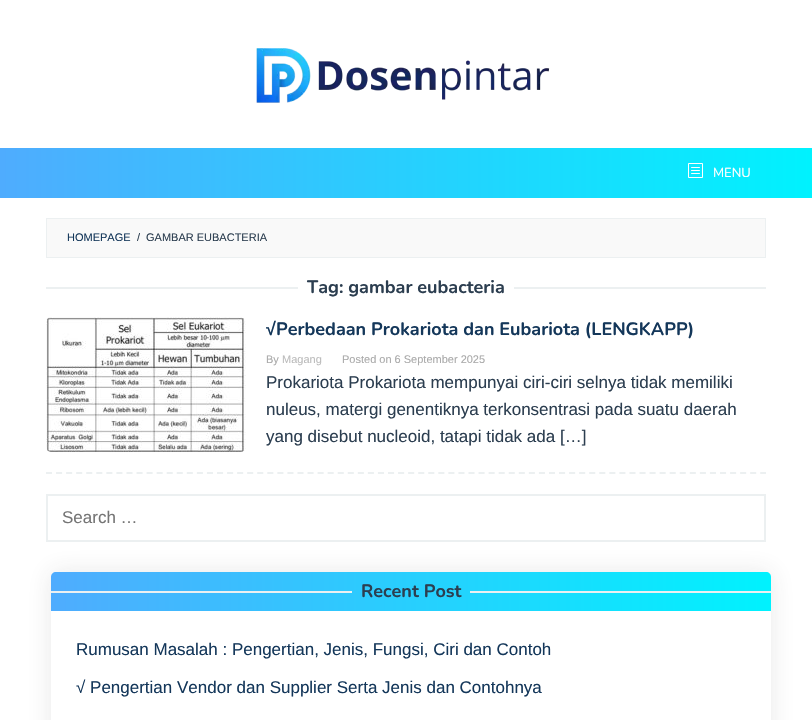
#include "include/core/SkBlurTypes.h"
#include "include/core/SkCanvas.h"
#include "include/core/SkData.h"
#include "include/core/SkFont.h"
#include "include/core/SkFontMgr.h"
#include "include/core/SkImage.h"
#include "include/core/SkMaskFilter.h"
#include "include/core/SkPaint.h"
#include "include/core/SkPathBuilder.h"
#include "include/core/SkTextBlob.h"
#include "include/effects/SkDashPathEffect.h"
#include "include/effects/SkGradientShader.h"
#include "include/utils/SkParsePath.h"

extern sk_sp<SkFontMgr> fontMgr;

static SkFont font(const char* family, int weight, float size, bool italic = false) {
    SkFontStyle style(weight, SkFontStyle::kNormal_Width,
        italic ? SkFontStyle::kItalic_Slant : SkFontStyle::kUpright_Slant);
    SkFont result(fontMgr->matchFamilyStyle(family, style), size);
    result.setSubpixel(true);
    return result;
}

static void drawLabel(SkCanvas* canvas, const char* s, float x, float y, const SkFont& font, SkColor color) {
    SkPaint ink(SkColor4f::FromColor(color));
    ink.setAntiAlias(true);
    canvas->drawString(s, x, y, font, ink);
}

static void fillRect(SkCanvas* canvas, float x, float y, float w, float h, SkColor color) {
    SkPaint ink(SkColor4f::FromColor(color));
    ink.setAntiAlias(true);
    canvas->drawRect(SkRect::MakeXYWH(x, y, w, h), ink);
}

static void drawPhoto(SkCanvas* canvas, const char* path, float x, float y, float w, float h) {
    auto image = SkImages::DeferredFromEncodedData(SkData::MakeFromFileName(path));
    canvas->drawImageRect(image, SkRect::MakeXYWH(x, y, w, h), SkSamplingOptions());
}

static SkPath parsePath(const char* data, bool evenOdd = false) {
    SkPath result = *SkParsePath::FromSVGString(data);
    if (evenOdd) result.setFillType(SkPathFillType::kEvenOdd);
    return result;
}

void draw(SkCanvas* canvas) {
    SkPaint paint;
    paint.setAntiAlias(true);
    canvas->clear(0xFFFFFFFF);
    drawPhoto(canvas, "assets/img1.png", 256, 48, 294, 55);
    {
        const SkColor colors[] = {0xFF4FACFE, 0xFF00F2FE};
        const float stops[] = {0, 1};
        const SkPoint ends[] = {{0, 173}, {812, 173}};
        paint.setShader(SkGradientShader::MakeLinear(ends, colors, stops, 2, SkTileMode::kClamp));
        paint.setAlpha(255);
    }
    canvas->drawRect(SkRect::MakeXYWH(0, 148, 812, 50), paint);
    drawPhoto(canvas, "assets/img2.png", 688, 163, 15, 15);
    SkFont font1 = font("Nunito", 400, 13);
    drawLabel(canvas, "MENU", 713, 177, font1, 0xFFFFFFFF);
    paint.setShader(nullptr);
    paint.setColor(0xFFF9F9F9);
    canvas->drawRect(SkRect::MakeXYWH(46.5f, 218.5f, 719, 39), paint);
    paint.setStroke(true);
    paint.setStrokeWidth(1);
    paint.setColor(0xFFECF0F1);
    canvas->drawRect(SkRect::MakeXYWH(46.5f, 218.5f, 719, 39), paint);
    SkFont font2 = font("Liberation Sans", 400, 11);
    drawLabel(canvas, "HOMEPAGE", 67, 241, font2, 0xFF14375A);
    drawLabel(canvas, "/", 137, 241, font2, 0xFF2C3E50);
    drawLabel(canvas, "GAMBAR EUBACTERIA", 146, 241, font2, 0xFF2C3E50);
    fillRect(canvas, 46, 287, 252, 2, 0xFFECF0F1);
    SkFont font3 = font("Nunito", 700, 18);
    drawLabel(canvas, "Tag: gambar eubacteria", 307, 293, font3, 0xFF2C3E50);
    fillRect(canvas, 514, 287, 252, 2, 0xFFECF0F1);
    paint.setStrokeWidth(2);
    paint.setPathEffect(SkDashPathEffect::Make({{6, 4.06f}}, 0));
    canvas->drawPath(parsePath("M46 473H766"), paint);
    paint.setPathEffect(nullptr);
    drawPhoto(canvas, "assets/img3.png", 46, 317, 200, 135);
    SkFont font4 = font("Liberation Sans", 700, 18);
    drawLabel(canvas, "√", 266, 335, font4, 0xFF14375A);
    drawLabel(canvas, "Perbedaan Prokariota dan Eubariota (LENGKAPP)", 276, 335, font3, 0xFF14375A);
    drawLabel(canvas, "By", 266, 363, font2, 0xFFAAAAAA);
    drawLabel(canvas, "Magang", 282, 363, font2, 0xFFBBBBBB);
    drawLabel(canvas, "Posted on 6 September 2025", 342, 363, font2, 0xFFAAAAAA);
    SkFont font5 = font("Liberation Sans", 400, 17);
    drawLabel(canvas, "Prokariota Prokariota mempunyai ciri-ciri selnya tidak memiliki", 266, 388, font5, 0xFF2C3E50);
    drawLabel(canvas, "nuleus, matergi genentiknya terkonsentrasi pada suatu daerah", 266, 415, font5, 0xFF2C3E50);
    drawLabel(canvas, "yang disebut nucleoid, tatapi tidak ada […]", 266, 442, font5, 0xFF2C3E50);
    canvas->drawRect(SkRect::MakeXYWH(47, 495, 718, 46), paint);
    drawLabel(canvas, "Search …", 62, 523, font5, 0xFF757575);
    canvas->save();
    canvas->clipPath(parsePath("M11 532H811V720H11ZM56 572H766C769 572 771 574 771 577V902C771 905 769 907 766 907H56C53 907 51 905 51 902V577C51 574 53 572 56 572Z", true), true);
    paint.setStroke(false);
    paint.setColor(0x1A323232);
    paint.setMaskFilter(SkMaskFilter::MakeBlur(kNormal_SkBlurStyle, 12.5f));
    canvas->drawRoundRect(SkRect::MakeXYWH(50, 571, 722, 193), 6, 6, paint);
    paint.setMaskFilter(nullptr);
    canvas->restore();
    {
        const SkColor colors[] = {0xFF4FACFE, 0xFF00F2FE};
        const float stops[] = {0, 1};
        const SkPoint ends[] = {{51, 592}, {771, 592}};
        paint.setShader(SkGradientShader::MakeLinear(ends, colors, stops, 2, SkTileMode::kClamp));
        paint.setAlpha(255);
    }
    canvas->drawPath(parsePath("M56 572H766C769 572 771 574 771 577V611H51V577C51 574 53 572 56 572Z"), paint);
    fillRect(canvas, 51, 591, 301, 2, 0xFFECF0F1);
    drawLabel(canvas, "Recent Post", 361, 597, font3, 0xFF2C3E50);
    fillRect(canvas, 470, 591, 301, 2, 0xFFECF0F1);
    drawLabel(canvas, "Rumusan Masalah : Pengertian, Jenis, Fungsi, Ciri dan Contoh", 76, 655, font5, 0xFF14375A);
    drawLabel(canvas, "√ Pengertian Vendor dan Supplier Serta Jenis dan Contohnya", 76, 693, font5, 0xFF14375A);
}
